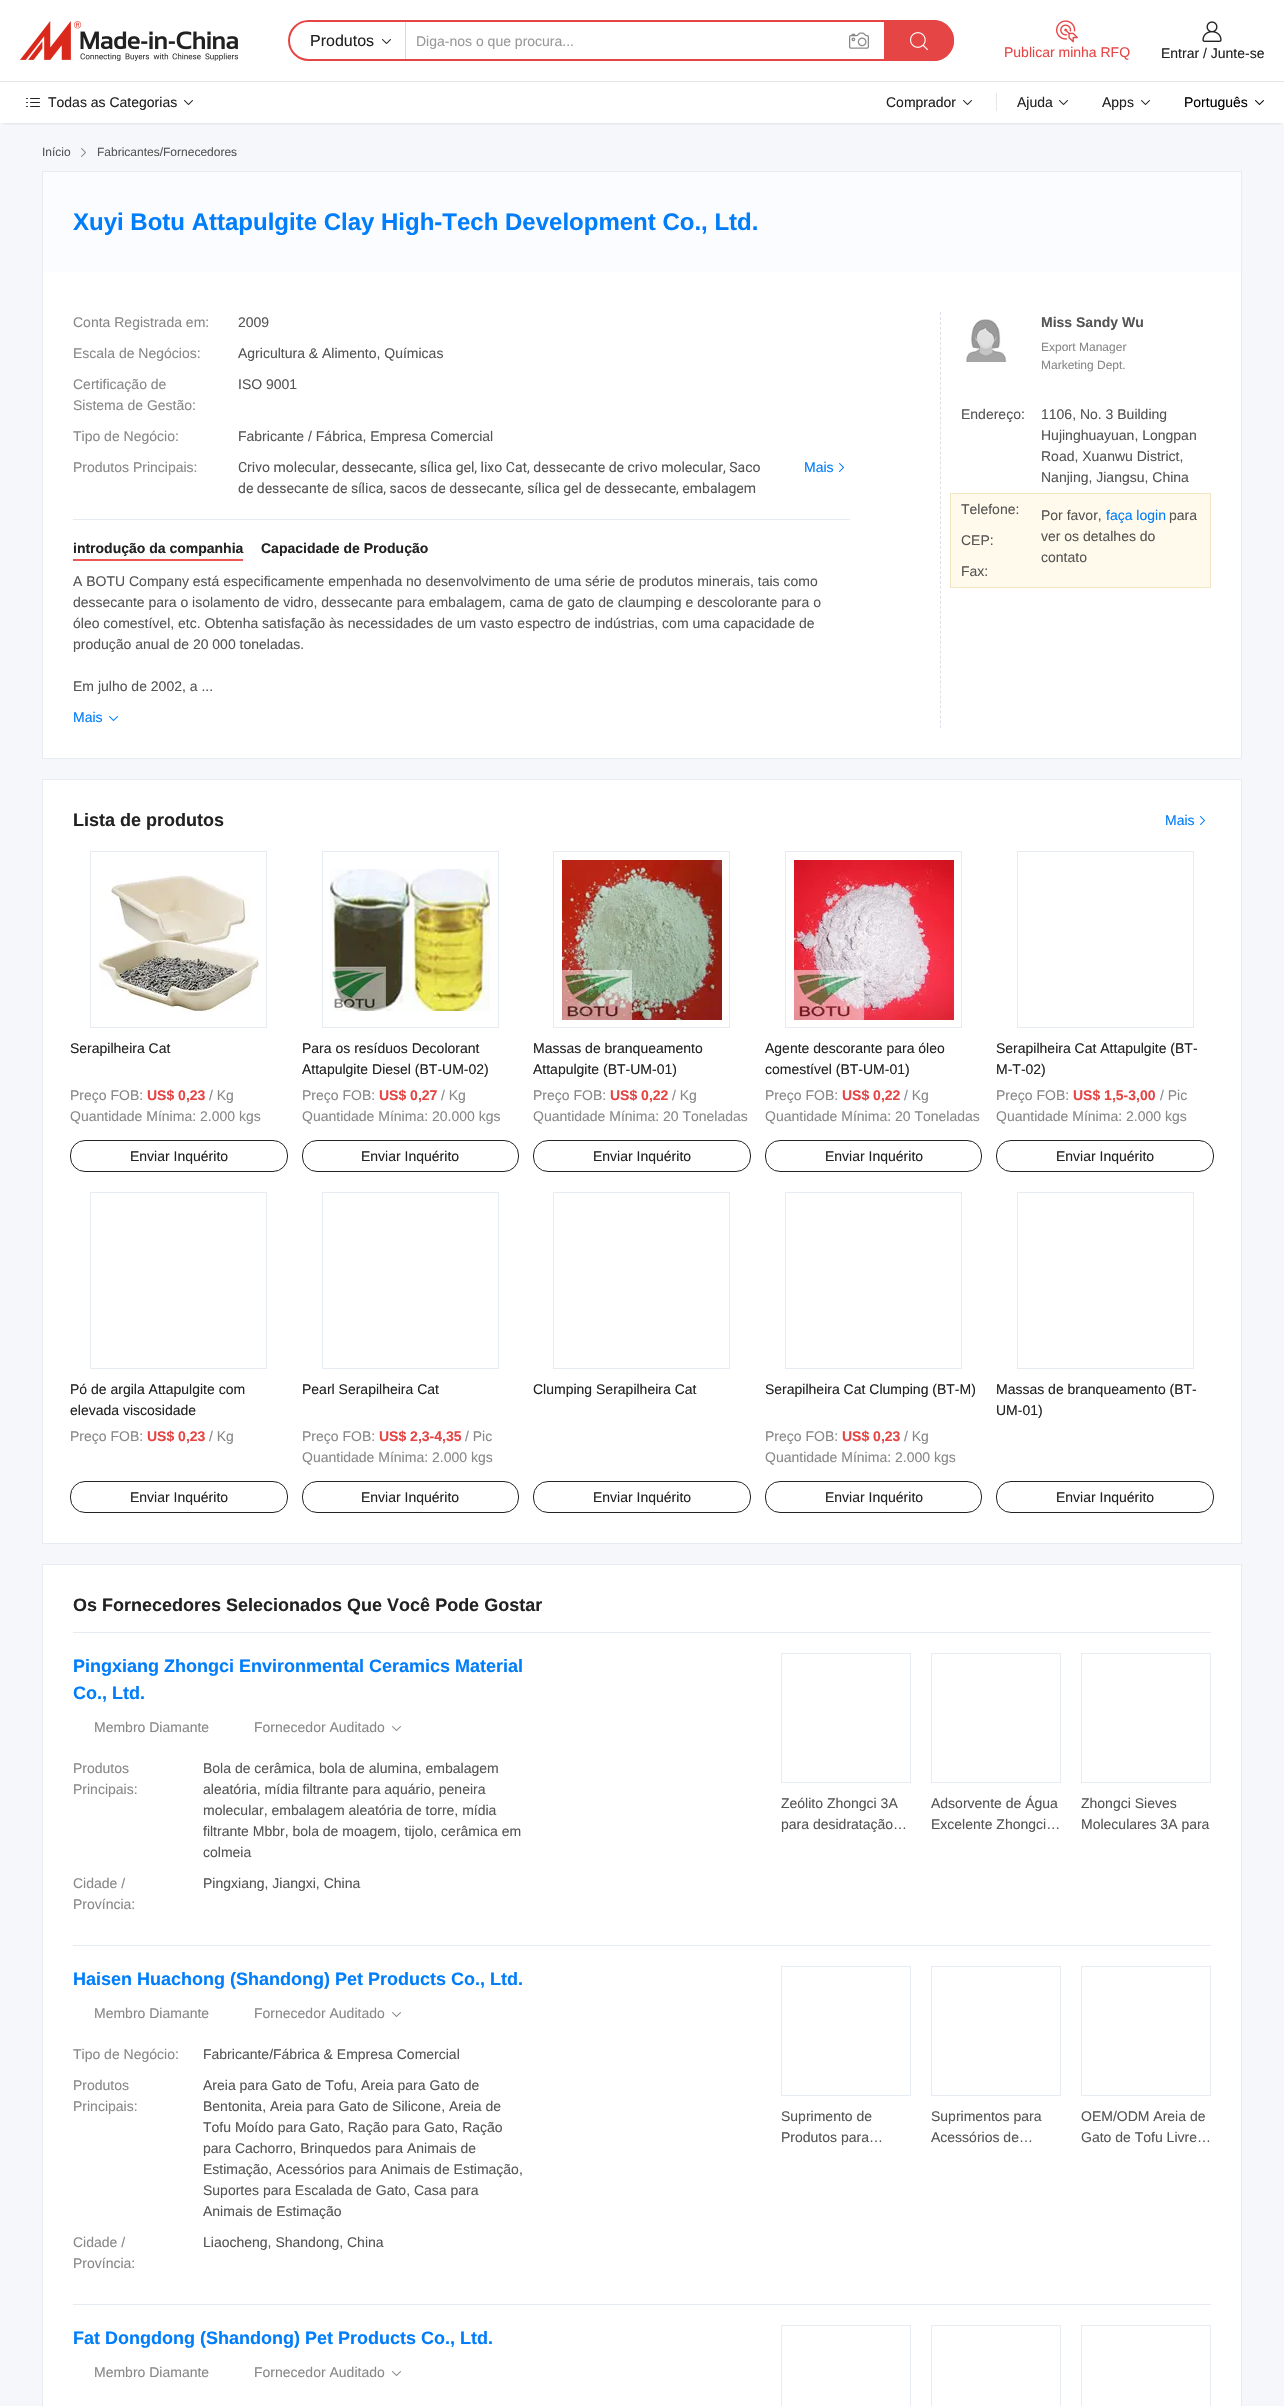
#include "include/core/SkBlurTypes.h"
#include "include/core/SkCanvas.h"
#include "include/core/SkData.h"
#include "include/core/SkFont.h"
#include "include/core/SkFontMgr.h"
#include "include/core/SkImage.h"
#include "include/core/SkMaskFilter.h"
#include "include/core/SkPaint.h"
#include "include/core/SkPathBuilder.h"
#include "include/core/SkTextBlob.h"
#include "include/effects/SkDashPathEffect.h"
#include "include/effects/SkGradientShader.h"
#include "include/utils/SkParsePath.h"

extern sk_sp<SkFontMgr> fontMgr;

static SkFont font(const char* family, int weight, float size, bool italic = false) {
    SkFontStyle style(weight, SkFontStyle::kNormal_Width,
        italic ? SkFontStyle::kItalic_Slant : SkFontStyle::kUpright_Slant);
    SkFont result(fontMgr->matchFamilyStyle(family, style), size);
    result.setSubpixel(true);
    return result;
}

static void drawLabel(SkCanvas* canvas, const char* s, float x, float y, const SkFont& font, SkColor color) {
    SkPaint ink(SkColor4f::FromColor(color));
    ink.setAntiAlias(true);
    canvas->drawString(s, x, y, font, ink);
}

static void fillRect(SkCanvas* canvas, float x, float y, float w, float h, SkColor color) {
    SkPaint ink(SkColor4f::FromColor(color));
    ink.setAntiAlias(true);
    canvas->drawRect(SkRect::MakeXYWH(x, y, w, h), ink);
}

static void drawPhoto(SkCanvas* canvas, const char* path, float x, float y, float w, float h) {
    auto image = SkImages::DeferredFromEncodedData(SkData::MakeFromFileName(path));
    canvas->drawImageRect(image, SkRect::MakeXYWH(x, y, w, h), SkSamplingOptions());
}

static SkPath parsePath(const char* data, bool evenOdd = false) {
    SkPath result = *SkParsePath::FromSVGString(data);
    if (evenOdd) result.setFillType(SkPathFillType::kEvenOdd);
    return result;
}

void draw(SkCanvas* canvas) {
    SkPaint paint;
    paint.setAntiAlias(true);
    canvas->clear(0xFFFFFFFF);
    fillRect(canvas, 0, 123, 1284, 2283, 0xFFF5F7FA);
    canvas->save();
    canvas->clipRect(SkRect::MakeXYWH(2, 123, 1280, 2));
    paint.setColor(0x1F000000);
    paint.setMaskFilter(SkMaskFilter::MakeBlur(kNormal_SkBlurStyle, 2.5f));
    canvas->drawRect(SkRect::MakeXYWH(3, 6, 1278, 117), paint);
    paint.setMaskFilter(nullptr);
    canvas->restore();
    drawPhoto(canvas, "assets/img1.png", 20, 21, 218, 40);
    paint.setStroke(true);
    paint.setStrokeWidth(2);
    paint.setColor(0xFFE64545);
    canvas->drawRoundRect(SkRect::MakeXYWH(289, 21, 664, 39), 19.5f, 19.5f, paint);
    fillRect(canvas, 405, 22, 1, 37, 0xFFDADADA);
    SkFont font1 = font("Liberation Sans", 400, 16);
    drawLabel(canvas, "Produtos", 310, 46, font1, 0xFF222222);
    drawPhoto(canvas, "assets/img2.png", 382, 39, 9, 5);
    SkFont font2 = font("Liberation Sans", 400, 14);
    drawLabel(canvas, "Diga-nos o que procura...", 416, 46, font2, 0xFF999999);
    drawPhoto(canvas, "assets/img3.png", 849, 32, 20, 17);
    paint.setStroke(false);
    canvas->drawPath(parsePath("M884 20H933.5C945 20 954 29 954 40.5C954 52 945 61 933.5 61H884Z"), paint);
    drawPhoto(canvas, "assets/img4.png", 910, 32, 18, 19);
    drawPhoto(canvas, "assets/img5.png", 1056, 20, 22, 23);
    drawLabel(canvas, "Publicar minha RFQ", 1004, 57, font2, 0xFFE64545);
    drawPhoto(canvas, "assets/img6.png", 1202, 21, 20, 21);
    drawLabel(canvas, "Entrar / Junte-se", 1161, 58, font2, 0xFF222222);
    fillRect(canvas, 0, 81, 1284, 1, 0xFFE6E7EB);
    drawPhoto(canvas, "assets/img7.png", 26, 98, 14, 9);
    drawLabel(canvas, "Todas as Categorias", 48, 107, font2, 0xFF222222);
    drawPhoto(canvas, "assets/img2.png", 184, 100, 9, 5);
    drawLabel(canvas, "Comprador", 886, 107, font2, 0xFF222222);
    drawPhoto(canvas, "assets/img2.png", 963, 100, 9, 5);
    fillRect(canvas, 996, 93, 1, 18, 0xFFE6E7EB);
    drawLabel(canvas, "Ajuda", 1017, 107, font2, 0xFF222222);
    drawPhoto(canvas, "assets/img2.png", 1059, 100, 9, 5);
    drawLabel(canvas, "Apps", 1102, 107, font2, 0xFF222222);
    drawPhoto(canvas, "assets/img2.png", 1141, 100, 9, 5);
    drawLabel(canvas, "Português", 1184, 107, font2, 0xFF000000);
    drawPhoto(canvas, "assets/img8.png", 1255, 100, 9, 5);
    SkFont font3 = font("Liberation Sans", 400, 12);
    drawLabel(canvas, "Início", 42, 156, font3, 0xFF555555);
    drawPhoto(canvas, "assets/img9.png", 81, 148, 5, 9);
    drawLabel(canvas, "Fabricantes/Fornecedores", 97, 156, font3, 0xFF555555);
    fillRect(canvas, 43, 272, 1198, 486, 0xFFFFFFFF);
    paint.setStroke(true);
    paint.setStrokeWidth(1);
    paint.setColor(0xFFE6ECF2);
    canvas->drawRect(SkRect::MakeXYWH(42.5f, 171.5f, 1199, 587), paint);
    fillRect(canvas, 43, 172, 1198, 100, 0xFFFAFCFF);
    SkFont font4 = font("Liberation Sans", 700, 24);
    drawLabel(canvas, "Xuyi Botu Attapulgite Clay High-Tech Development Co., Ltd.", 73, 230, font4, 0xFF007DFA);
    paint.setColor(0xFFDAE0E6);
    paint.setPathEffect(SkDashPathEffect::Make({{3, 1.98f}}, 0));
    canvas->drawPath(parsePath("M940.5 312V728"), paint);
    paint.setPathEffect(nullptr);
    drawLabel(canvas, "Conta Registrada em:", 73, 327, font2, 0xFF888888);
    drawLabel(canvas, "2009", 238, 327, font2, 0xFF555555);
    drawLabel(canvas, "Escala de Negócios:", 73, 358, font2, 0xFF888888);
    drawLabel(canvas, "Agricultura & Alimento, Químicas", 238, 358, font2, 0xFF555555);
    drawLabel(canvas, "Certificação de", 73, 389, font2, 0xFF888888);
    drawLabel(canvas, "Sistema de Gestão:", 73, 410, font2, 0xFF888888);
    drawLabel(canvas, "ISO 9001", 238, 389, font2, 0xFF555555);
    drawLabel(canvas, "Tipo de Negócio:", 73, 441, font2, 0xFF888888);
    drawLabel(canvas, "Fabricante / Fábrica, Empresa Comercial", 238, 441, font2, 0xFF555555);
    drawLabel(canvas, "Produtos Principais:", 73, 472, font2, 0xFF888888);
    SkFont font5 = font("Roboto", 400, 14);
    drawLabel(canvas, "Crivo molecular, dessecante, sílica gel, lixo Cat, dessecante de crivo molecular, Saco", 238, 472, font5, 0xFF555555);
    drawLabel(canvas, "de dessecante de sílica, sacos de dessecante, sílica gel de dessecante, embalagem", 238, 493, font5, 0xFF555555);
    drawLabel(canvas, "Mais", 804, 472, font2, 0xFF007DFA);
    drawPhoto(canvas, "assets/img10.png", 839, 463, 5, 9);
    fillRect(canvas, 73, 519, 777, 1, 0xFFE6ECF2);
    fillRect(canvas, 73, 559, 170, 2, 0xFFEB5757);
    SkFont font6 = font("Liberation Sans", 700, 14);
    drawLabel(canvas, "introdução da companhia", 73, 553, font6, 0xFF222222);
    drawLabel(canvas, "Capacidade de Produção", 261, 553, font6, 0xFF222222);
    drawLabel(canvas, "A BOTU Company está especificamente empenhada no desenvolvimento de uma série de produtos minerais, tais como", 73, 586, font2, 0xFF555555);
    drawLabel(canvas, "dessecante para o isolamento de vidro, dessecante para embalagem, cama de gato de claumping e descolorante para o", 73, 607, font2, 0xFF555555);
    drawLabel(canvas, "óleo comestível, etc. Obtenha satisfação às necessidades de um vasto espectro de indústrias, com uma capacidade de", 73, 628, font2, 0xFF555555);
    drawLabel(canvas, "produção anual de 20 000 toneladas.", 73, 649, font2, 0xFF555555);
    drawLabel(canvas, "Em julho de 2002, a ...", 73, 691, font2, 0xFF555555);
    drawLabel(canvas, "Mais", 73, 722, font2, 0xFF007DFA);
    drawPhoto(canvas, "assets/img11.png", 109, 716, 9, 5);
    drawPhoto(canvas, "assets/img12.png", 966, 319, 41, 43);
    drawLabel(canvas, "Miss Sandy Wu", 1041, 327, font6, 0xFF555555);
    drawLabel(canvas, "Export Manager", 1041, 351, font3, 0xFF888888);
    drawLabel(canvas, "Marketing Dept.", 1041, 369, font3, 0xFF888888);
    drawLabel(canvas, "Endereço:", 961, 419, font2, 0xFF555555);
    drawLabel(canvas, "1106, No. 3 Building", 1041, 419, font2, 0xFF555555);
    drawLabel(canvas, "Hujinghuayuan, Longpan", 1041, 440, font2, 0xFF555555);
    drawLabel(canvas, "Road, Xuanwu District,", 1041, 461, font2, 0xFF555555);
    drawLabel(canvas, "Nanjing, Jiangsu, China", 1041, 482, font2, 0xFF555555);
    paint.setStroke(false);
    paint.setColor(0xFFFFFAEB);
    canvas->drawRect(SkRect::MakeXYWH(950.5f, 493.5f, 260, 94), paint);
    paint.setStroke(true);
    paint.setColor(0xFFF2E6C2);
    canvas->drawRect(SkRect::MakeXYWH(950.5f, 493.5f, 260, 94), paint);
    drawLabel(canvas, "Telefone:", 961, 514, font2, 0xFF555555);
    drawLabel(canvas, "CEP:", 961, 545, font2, 0xFF555555);
    drawLabel(canvas, "Fax:", 961, 576, font2, 0xFF555555);
    drawLabel(canvas, "Por favor,", 1041, 520, font2, 0xFF555555);
    drawLabel(canvas, "faça login", 1106, 520, font2, 0xFF007DFA);
    drawLabel(canvas, "para", 1169, 520, font2, 0xFF555555);
    drawLabel(canvas, "ver os detalhes do", 1041, 541, font2, 0xFF555555);
    drawLabel(canvas, "contato", 1041, 562, font2, 0xFF555555);
    paint.setStroke(false);
    paint.setColor(0xFFFFFFFF);
    canvas->drawRect(SkRect::MakeXYWH(42.5f, 779.5f, 1199, 764), paint);
    paint.setStroke(true);
    paint.setColor(0xFFE6ECF2);
    canvas->drawRect(SkRect::MakeXYWH(42.5f, 779.5f, 1199, 764), paint);
    SkFont font7 = font("Liberation Sans", 700, 18);
    drawLabel(canvas, "Lista de produtos", 73, 826, font7, 0xFF222222);
    drawLabel(canvas, "Mais", 1165, 825, font2, 0xFF007DFA);
    drawPhoto(canvas, "assets/img13.png", 1200, 816, 5, 9);
    canvas->drawRect(SkRect::MakeXYWH(90.5f, 851.5f, 176, 176), paint);
    drawPhoto(canvas, "assets/img14.png", 99, 875, 160, 137);
    drawLabel(canvas, "Serapilheira Cat", 70, 1053, font2, 0xFF222222);
    drawLabel(canvas, "Preço FOB:", 70, 1100, font2, 0xFF888888);
    drawLabel(canvas, "US$ 0,23", 147, 1100, font6, 0xFFE64545);
    drawLabel(canvas, "/ Kg", 209, 1100, font2, 0xFF888888);
    drawLabel(canvas, "Quantidade Mínima: 2.000 kgs", 70, 1121, font2, 0xFF888888);
    paint.setColor(0xFF222222);
    canvas->drawRoundRect(SkRect::MakeXYWH(70.5f, 1140.5f, 217, 31), 14.5f, 14.5f, paint);
    drawLabel(canvas, "Enviar Inquérito", 130, 1161, font2, 0xFF222222);
    paint.setColor(0xFFE6ECF2);
    canvas->drawRect(SkRect::MakeXYWH(322.5f, 851.5f, 176, 176), paint);
    drawPhoto(canvas, "assets/img15.png", 330, 869, 160, 142);
    drawLabel(canvas, "Para os resíduos Decolorant", 302, 1053, font2, 0xFF222222);
    drawLabel(canvas, "Attapulgite Diesel (BT-UM-02)", 302, 1074, font2, 0xFF222222);
    drawLabel(canvas, "Preço FOB:", 302, 1100, font2, 0xFF888888);
    drawLabel(canvas, "US$ 0,27", 379, 1100, font6, 0xFFE64545);
    drawLabel(canvas, "/ Kg", 441, 1100, font2, 0xFF888888);
    drawLabel(canvas, "Quantidade Mínima: 20.000 kgs", 302, 1121, font2, 0xFF888888);
    paint.setColor(0xFF222222);
    canvas->drawRoundRect(SkRect::MakeXYWH(302.5f, 1140.5f, 216, 31), 14.5f, 14.5f, paint);
    drawLabel(canvas, "Enviar Inquérito", 361, 1161, font2, 0xFF222222);
    paint.setColor(0xFFE6ECF2);
    canvas->drawRect(SkRect::MakeXYWH(553.5f, 851.5f, 176, 176), paint);
    drawPhoto(canvas, "assets/img16.png", 562, 860, 160, 160);
    drawLabel(canvas, "Massas de branqueamento", 533, 1053, font2, 0xFF222222);
    drawLabel(canvas, "Attapulgite (BT-UM-01)", 533, 1074, font2, 0xFF222222);
    drawLabel(canvas, "Preço FOB:", 533, 1100, font2, 0xFF888888);
    drawLabel(canvas, "US$ 0,22", 610, 1100, font6, 0xFFE64545);
    drawLabel(canvas, "/ Kg", 672, 1100, font2, 0xFF888888);
    drawLabel(canvas, "Quantidade Mínima: 20 Toneladas", 533, 1121, font2, 0xFF888888);
    paint.setColor(0xFF222222);
    canvas->drawRoundRect(SkRect::MakeXYWH(533.5f, 1140.5f, 217, 31), 14.5f, 14.5f, paint);
    drawLabel(canvas, "Enviar Inquérito", 593, 1161, font2, 0xFF222222);
    paint.setColor(0xFFE6ECF2);
    canvas->drawRect(SkRect::MakeXYWH(785.5f, 851.5f, 176, 176), paint);
    drawPhoto(canvas, "assets/img17.png", 794, 860, 160, 160);
    drawLabel(canvas, "Agente descorante para óleo", 765, 1053, font2, 0xFF222222);
    drawLabel(canvas, "comestível (BT-UM-01)", 765, 1074, font2, 0xFF222222);
    drawLabel(canvas, "Preço FOB:", 765, 1100, font2, 0xFF888888);
    drawLabel(canvas, "US$ 0,22", 842, 1100, font6, 0xFFE64545);
    drawLabel(canvas, "/ Kg", 904, 1100, font2, 0xFF888888);
    drawLabel(canvas, "Quantidade Mínima: 20 Toneladas", 765, 1121, font2, 0xFF888888);
    paint.setColor(0xFF222222);
    canvas->drawRoundRect(SkRect::MakeXYWH(765.5f, 1140.5f, 216, 31), 14.5f, 14.5f, paint);
    drawLabel(canvas, "Enviar Inquérito", 825, 1161, font2, 0xFF222222);
    paint.setColor(0xFFE6ECF2);
    canvas->drawRect(SkRect::MakeXYWH(1017.5f, 851.5f, 176, 176), paint);
    drawLabel(canvas, "Serapilheira Cat Attapulgite (BT-", 996, 1053, font2, 0xFF222222);
    drawLabel(canvas, "M-T-02)", 996, 1074, font2, 0xFF222222);
    drawLabel(canvas, "Preço FOB:", 996, 1100, font2, 0xFF888888);
    drawLabel(canvas, "US$ 1,5-3,00", 1073, 1100, font6, 0xFFE64545);
    drawLabel(canvas, "/ Pic", 1160, 1100, font2, 0xFF888888);
    drawLabel(canvas, "Quantidade Mínima: 2.000 kgs", 996, 1121, font2, 0xFF888888);
    paint.setColor(0xFF222222);
    canvas->drawRoundRect(SkRect::MakeXYWH(996.5f, 1140.5f, 217, 31), 14.5f, 14.5f, paint);
    drawLabel(canvas, "Enviar Inquérito", 1056, 1161, font2, 0xFF222222);
    paint.setColor(0xFFE6ECF2);
    canvas->drawRect(SkRect::MakeXYWH(90.5f, 1192.5f, 176, 176), paint);
    drawLabel(canvas, "Pó de argila Attapulgite com", 70, 1394, font2, 0xFF222222);
    drawLabel(canvas, "elevada viscosidade", 70, 1415, font2, 0xFF222222);
    drawLabel(canvas, "Preço FOB:", 70, 1441, font2, 0xFF888888);
    drawLabel(canvas, "US$ 0,23", 147, 1441, font6, 0xFFE64545);
    drawLabel(canvas, "/ Kg", 209, 1441, font2, 0xFF888888);
    paint.setColor(0xFF222222);
    canvas->drawRoundRect(SkRect::MakeXYWH(70.5f, 1481.5f, 217, 31), 14.5f, 14.5f, paint);
    drawLabel(canvas, "Enviar Inquérito", 130, 1502, font2, 0xFF222222);
    paint.setColor(0xFFE6ECF2);
    canvas->drawRect(SkRect::MakeXYWH(322.5f, 1192.5f, 176, 176), paint);
    drawLabel(canvas, "Pearl Serapilheira Cat", 302, 1394, font2, 0xFF222222);
    drawLabel(canvas, "Preço FOB:", 302, 1441, font2, 0xFF888888);
    drawLabel(canvas, "US$ 2,3-4,35", 379, 1441, font6, 0xFFE64545);
    drawLabel(canvas, "/ Pic", 465, 1441, font2, 0xFF888888);
    drawLabel(canvas, "Quantidade Mínima: 2.000 kgs", 302, 1462, font2, 0xFF888888);
    paint.setColor(0xFF222222);
    canvas->drawRoundRect(SkRect::MakeXYWH(302.5f, 1481.5f, 216, 31), 14.5f, 14.5f, paint);
    drawLabel(canvas, "Enviar Inquérito", 361, 1502, font2, 0xFF222222);
    paint.setColor(0xFFE6ECF2);
    canvas->drawRect(SkRect::MakeXYWH(553.5f, 1192.5f, 176, 176), paint);
    drawLabel(canvas, "Clumping Serapilheira Cat", 533, 1394, font2, 0xFF222222);
    paint.setColor(0xFF222222);
    canvas->drawRoundRect(SkRect::MakeXYWH(533.5f, 1481.5f, 217, 31), 14.5f, 14.5f, paint);
    drawLabel(canvas, "Enviar Inquérito", 593, 1502, font2, 0xFF222222);
    paint.setColor(0xFFE6ECF2);
    canvas->drawRect(SkRect::MakeXYWH(785.5f, 1192.5f, 176, 176), paint);
    drawLabel(canvas, "Serapilheira Cat Clumping (BT-M)", 765, 1394, font2, 0xFF222222);
    drawLabel(canvas, "Preço FOB:", 765, 1441, font2, 0xFF888888);
    drawLabel(canvas, "US$ 0,23", 842, 1441, font6, 0xFFE64545);
    drawLabel(canvas, "/ Kg", 904, 1441, font2, 0xFF888888);
    drawLabel(canvas, "Quantidade Mínima: 2.000 kgs", 765, 1462, font2, 0xFF888888);
    paint.setColor(0xFF222222);
    canvas->drawRoundRect(SkRect::MakeXYWH(765.5f, 1481.5f, 216, 31), 14.5f, 14.5f, paint);
    drawLabel(canvas, "Enviar Inquérito", 825, 1502, font2, 0xFF222222);
    paint.setColor(0xFFE6ECF2);
    canvas->drawRect(SkRect::MakeXYWH(1017.5f, 1192.5f, 176, 176), paint);
    drawLabel(canvas, "Massas de branqueamento (BT-", 996, 1394, font2, 0xFF222222);
    drawLabel(canvas, "UM-01)", 996, 1415, font2, 0xFF222222);
    paint.setColor(0xFF222222);
    canvas->drawRoundRect(SkRect::MakeXYWH(996.5f, 1481.5f, 217, 31), 14.5f, 14.5f, paint);
    drawLabel(canvas, "Enviar Inquérito", 1056, 1502, font2, 0xFF222222);
    paint.setStroke(false);
    paint.setColor(0xFFFFFFFF);
    canvas->drawRect(SkRect::MakeXYWH(42.5f, 1564.5f, 1199, 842), paint);
    paint.setStroke(true);
    paint.setColor(0xFFE6ECF2);
    canvas->drawRect(SkRect::MakeXYWH(42.5f, 1564.5f, 1199, 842), paint);
    drawLabel(canvas, "Os Fornecedores Selecionados Que Você Pode Gostar", 73, 1611, font7, 0xFF222222);
    fillRect(canvas, 73, 1632, 1138, 1, 0xFFE6ECF2);
    drawLabel(canvas, "Pingxiang Zhongci Environmental Ceramics Material", 73, 1672, font7, 0xFF007DFA);
    drawLabel(canvas, "Co., Ltd.", 73, 1699, font7, 0xFF007DFA);
    drawLabel(canvas, "Membro Diamante", 94, 1732, font2, 0xFF888888);
    drawLabel(canvas, "Fornecedor Auditado", 254, 1732, font2, 0xFF888888);
    drawPhoto(canvas, "assets/img18.png", 392, 1726, 9, 5);
    drawLabel(canvas, "Produtos", 73, 1773, font2, 0xFF888888);
    drawLabel(canvas, "Principais:", 73, 1794, font2, 0xFF888888);
    drawLabel(canvas, "Bola de cerâmica, bola de alumina, embalagem", 203, 1773, font2, 0xFF555555);
    drawLabel(canvas, "aleatória, mídia filtrante para aquário, peneira", 203, 1794, font2, 0xFF555555);
    drawLabel(canvas, "molecular, embalagem aleatória de torre, mídia", 203, 1815, font2, 0xFF555555);
    drawLabel(canvas, "filtrante Mbbr, bola de moagem, tijolo, cerâmica em", 203, 1836, font2, 0xFF555555);
    drawLabel(canvas, "colmeia", 203, 1857, font2, 0xFF555555);
    drawLabel(canvas, "Cidade /", 73, 1888, font2, 0xFF888888);
    drawLabel(canvas, "Província:", 73, 1909, font2, 0xFF888888);
    drawLabel(canvas, "Pingxiang, Jiangxi, China", 203, 1888, font2, 0xFF555555);
    canvas->drawRect(SkRect::MakeXYWH(781.5f, 1653.5f, 129, 129), paint);
    drawLabel(canvas, "Zeólito Zhongci 3A", 781, 1808, font2, 0xFF555555);
    drawLabel(canvas, "para desidratação…", 781, 1829, font2, 0xFF555555);
    canvas->drawRect(SkRect::MakeXYWH(931.5f, 1653.5f, 129, 129), paint);
    drawLabel(canvas, "Adsorvente de Água", 931, 1808, font2, 0xFF555555);
    drawLabel(canvas, "Excelente Zhongci…", 931, 1829, font2, 0xFF555555);
    canvas->drawRect(SkRect::MakeXYWH(1081.5f, 1653.5f, 129, 129), paint);
    drawLabel(canvas, "Zhongci Sieves", 1081, 1808, font2, 0xFF555555);
    drawLabel(canvas, "Moleculares 3A para", 1081, 1829, font2, 0xFF555555);
    fillRect(canvas, 73, 1945, 1138, 1, 0xFFE6ECF2);
    drawLabel(canvas, "Haisen Huachong (Shandong) Pet Products Co., Ltd.", 73, 1985, font7, 0xFF007DFA);
    drawLabel(canvas, "Membro Diamante", 94, 2018, font2, 0xFF888888);
    drawLabel(canvas, "Fornecedor Auditado", 254, 2018, font2, 0xFF888888);
    drawPhoto(canvas, "assets/img18.png", 392, 2012, 9, 5);
    drawLabel(canvas, "Tipo de Negócio:", 73, 2059, font2, 0xFF888888);
    drawLabel(canvas, "Fabricante/Fábrica & Empresa Comercial", 203, 2059, font2, 0xFF555555);
    drawLabel(canvas, "Produtos", 73, 2090, font2, 0xFF888888);
    drawLabel(canvas, "Principais:", 73, 2111, font2, 0xFF888888);
    drawLabel(canvas, "Areia para Gato de Tofu, Areia para Gato de", 203, 2090, font2, 0xFF555555);
    drawLabel(canvas, "Bentonita, Areia para Gato de Silicone, Areia de", 203, 2111, font2, 0xFF555555);
    drawLabel(canvas, "Tofu Moído para Gato, Ração para Gato, Ração", 203, 2132, font2, 0xFF555555);
    drawLabel(canvas, "para Cachorro, Brinquedos para Animais de", 203, 2153, font2, 0xFF555555);
    drawLabel(canvas, "Estimação, Acessórios para Animais de Estimação,", 203, 2174, font2, 0xFF555555);
    drawLabel(canvas, "Suportes para Escalada de Gato, Casa para", 203, 2195, font2, 0xFF555555);
    drawLabel(canvas, "Animais de Estimação", 203, 2216, font2, 0xFF555555);
    drawLabel(canvas, "Cidade /", 73, 2247, font2, 0xFF888888);
    drawLabel(canvas, "Província:", 73, 2268, font2, 0xFF888888);
    drawLabel(canvas, "Liaocheng, Shandong, China", 203, 2247, font2, 0xFF555555);
    canvas->drawRect(SkRect::MakeXYWH(781.5f, 1966.5f, 129, 129), paint);
    drawLabel(canvas, "Suprimento de", 781, 2121, font2, 0xFF555555);
    drawLabel(canvas, "Produtos para…", 781, 2142, font2, 0xFF555555);
    canvas->drawRect(SkRect::MakeXYWH(931.5f, 1966.5f, 129, 129), paint);
    drawLabel(canvas, "Suprimentos para", 931, 2121, font2, 0xFF555555);
    drawLabel(canvas, "Acessórios de…", 931, 2142, font2, 0xFF555555);
    canvas->drawRect(SkRect::MakeXYWH(1081.5f, 1966.5f, 129, 129), paint);
    drawLabel(canvas, "OEM/ODM Areia de", 1081, 2121, font2, 0xFF555555);
    drawLabel(canvas, "Gato de Tofu Livre…", 1081, 2142, font2, 0xFF555555);
    fillRect(canvas, 73, 2304, 1138, 1, 0xFFE6ECF2);
    drawLabel(canvas, "Fat Dongdong (Shandong) Pet Products Co., Ltd.", 73, 2344, font7, 0xFF007DFA);
    drawLabel(canvas, "Membro Diamante", 94, 2377, font2, 0xFF888888);
    drawLabel(canvas, "Fornecedor Auditado", 254, 2377, font2, 0xFF888888);
    drawPhoto(canvas, "assets/img18.png", 392, 2371, 9, 5);
    canvas->drawRect(SkRect::MakeXYWH(781.5f, 2325.5f, 129, 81), paint);
    canvas->drawRect(SkRect::MakeXYWH(931.5f, 2325.5f, 129, 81), paint);
    canvas->drawRect(SkRect::MakeXYWH(1081.5f, 2325.5f, 129, 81), paint);
}
